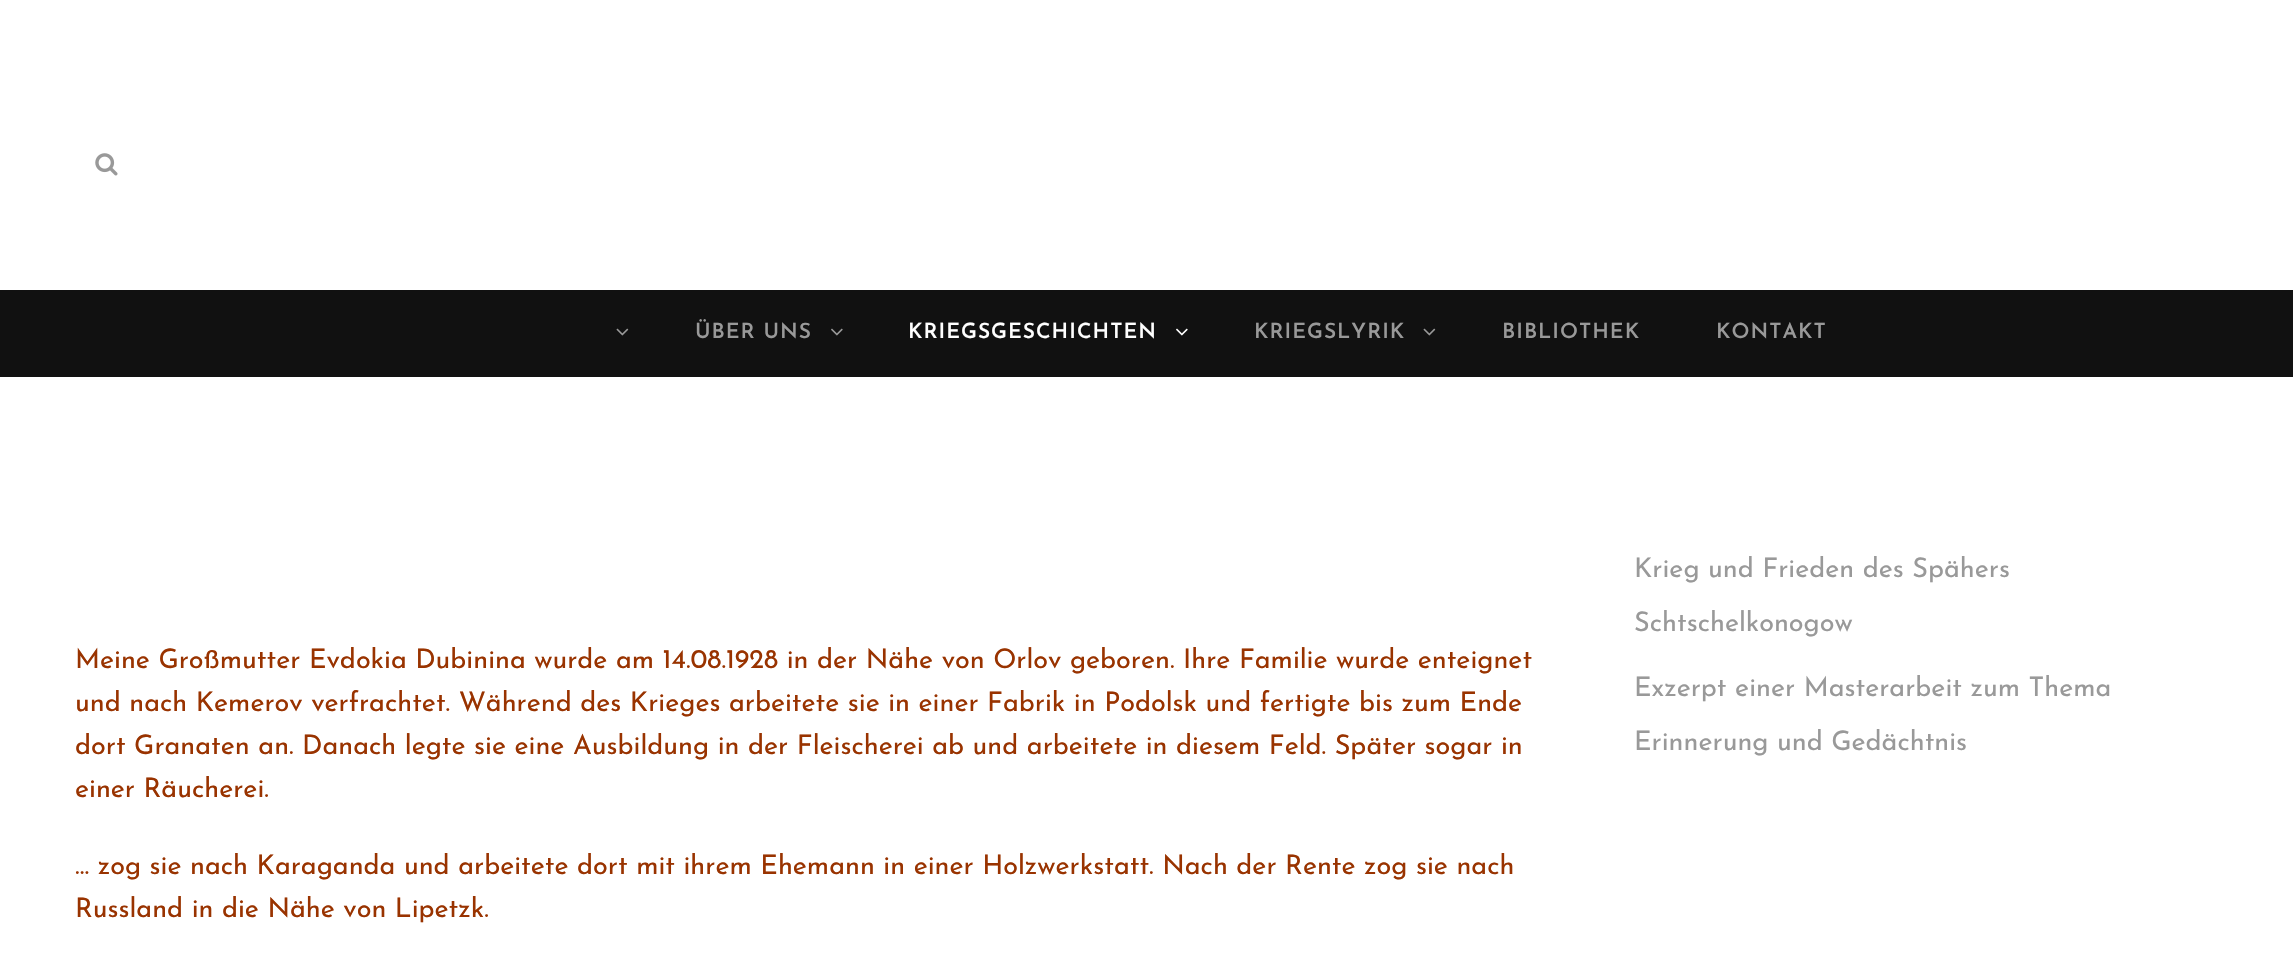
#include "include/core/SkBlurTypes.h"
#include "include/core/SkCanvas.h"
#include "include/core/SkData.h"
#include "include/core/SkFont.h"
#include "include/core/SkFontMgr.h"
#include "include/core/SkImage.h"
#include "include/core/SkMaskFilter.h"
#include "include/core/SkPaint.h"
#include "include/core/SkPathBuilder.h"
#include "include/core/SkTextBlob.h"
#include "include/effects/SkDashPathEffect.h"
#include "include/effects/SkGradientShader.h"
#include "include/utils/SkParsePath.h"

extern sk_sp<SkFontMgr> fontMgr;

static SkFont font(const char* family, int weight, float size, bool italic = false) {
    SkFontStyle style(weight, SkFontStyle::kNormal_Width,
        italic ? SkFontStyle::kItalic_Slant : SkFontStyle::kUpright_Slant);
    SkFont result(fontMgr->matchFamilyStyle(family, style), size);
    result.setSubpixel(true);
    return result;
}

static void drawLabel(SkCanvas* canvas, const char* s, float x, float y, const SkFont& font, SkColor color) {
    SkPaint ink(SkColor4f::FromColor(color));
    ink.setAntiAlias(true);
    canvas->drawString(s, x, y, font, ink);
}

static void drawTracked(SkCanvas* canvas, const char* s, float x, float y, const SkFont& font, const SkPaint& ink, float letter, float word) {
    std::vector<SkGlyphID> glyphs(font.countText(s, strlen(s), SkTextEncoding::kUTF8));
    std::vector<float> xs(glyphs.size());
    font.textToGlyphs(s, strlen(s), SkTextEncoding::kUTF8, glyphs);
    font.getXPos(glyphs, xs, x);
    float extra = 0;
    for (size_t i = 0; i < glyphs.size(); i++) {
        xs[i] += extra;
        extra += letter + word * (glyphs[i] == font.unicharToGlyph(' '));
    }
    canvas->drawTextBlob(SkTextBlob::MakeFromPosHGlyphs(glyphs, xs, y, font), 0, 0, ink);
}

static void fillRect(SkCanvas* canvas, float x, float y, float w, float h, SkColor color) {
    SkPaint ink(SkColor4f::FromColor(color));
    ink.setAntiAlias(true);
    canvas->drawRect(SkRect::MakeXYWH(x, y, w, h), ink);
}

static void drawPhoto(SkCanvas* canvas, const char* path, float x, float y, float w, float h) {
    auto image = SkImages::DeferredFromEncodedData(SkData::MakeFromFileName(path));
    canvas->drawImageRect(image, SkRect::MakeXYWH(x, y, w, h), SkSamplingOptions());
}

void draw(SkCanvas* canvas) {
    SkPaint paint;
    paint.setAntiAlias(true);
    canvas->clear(0xFFFFFFFF);
    drawPhoto(canvas, "assets/img1.png", 95, 153, 23, 23);
    fillRect(canvas, 0, 290, 2293, 87, 0xFF111111);
    drawPhoto(canvas, "assets/img2.png", 616, 328, 13, 8);
    SkFont font1 = font("Josefin Sans", 600, 21);
    paint.setColor(0xFF999999);
    drawTracked(canvas, "ÜBER UNS", 695, 338, font1, paint, 1, 0);
    drawPhoto(canvas, "assets/img3.png", 831, 328, 12, 8);
    paint.setColor(0xFFFFFFFF);
    drawTracked(canvas, "KRIEGSGESCHICHTEN", 908, 338, font1, paint, 1, 0);
    drawPhoto(canvas, "assets/img4.png", 1176, 328, 12, 8);
    paint.setColor(0xFF999999);
    drawTracked(canvas, "KRIEGSLYRIK", 1254, 338, font1, paint, 1, 0);
    drawPhoto(canvas, "assets/img2.png", 1423, 328, 13, 8);
    drawTracked(canvas, "BIBLIOTHEK", 1502, 338, font1, paint, 1, 0);
    drawTracked(canvas, "KONTAKT", 1716, 338, font1, paint, 1, 0);
    SkFont font2 = font("Josefin Sans", 400, 27);
    drawLabel(canvas, "Meine Großmutter Evdokia Dubinina wurde am 14.08.1928 in der Nähe von Orlov geboren. Ihre Familie wurde enteignet", 75, 668, font2, 0xFF993300);
    drawLabel(canvas, "und nach Kemerov verfrachtet. Während des Krieges arbeitete sie in einer Fabrik in Podolsk und fertigte bis zum Ende", 75, 711, font2, 0xFF993300);
    drawLabel(canvas, "dort Granaten an. Danach legte sie eine Ausbildung in der Fleischerei ab und arbeitete in diesem Feld. Später sogar in", 75, 754, font2, 0xFF993300);
    drawLabel(canvas, "einer Räucherei.", 75, 797, font2, 0xFF993300);
    drawLabel(canvas, "… zog sie nach Karaganda und arbeitete dort mit ihrem Ehemann in einer Holzwerkstatt. Nach der Rente zog sie nach", 75, 874, font2, 0xFF993300);
    drawLabel(canvas, "Russland in die Nähe von Lipetzk.", 75, 917, font2, 0xFF993300);
    drawLabel(canvas, "Krieg und Frieden des Spähers", 1634, 577, font2, 0xFF999999);
    drawLabel(canvas, "Schtschelkonogow", 1634, 631, font2, 0xFF999999);
    drawLabel(canvas, "Exzerpt einer Masterarbeit zum Thema", 1634, 696, font2, 0xFF999999);
    drawLabel(canvas, "Erinnerung und Gedächtnis", 1634, 750, font2, 0xFF999999);
}
